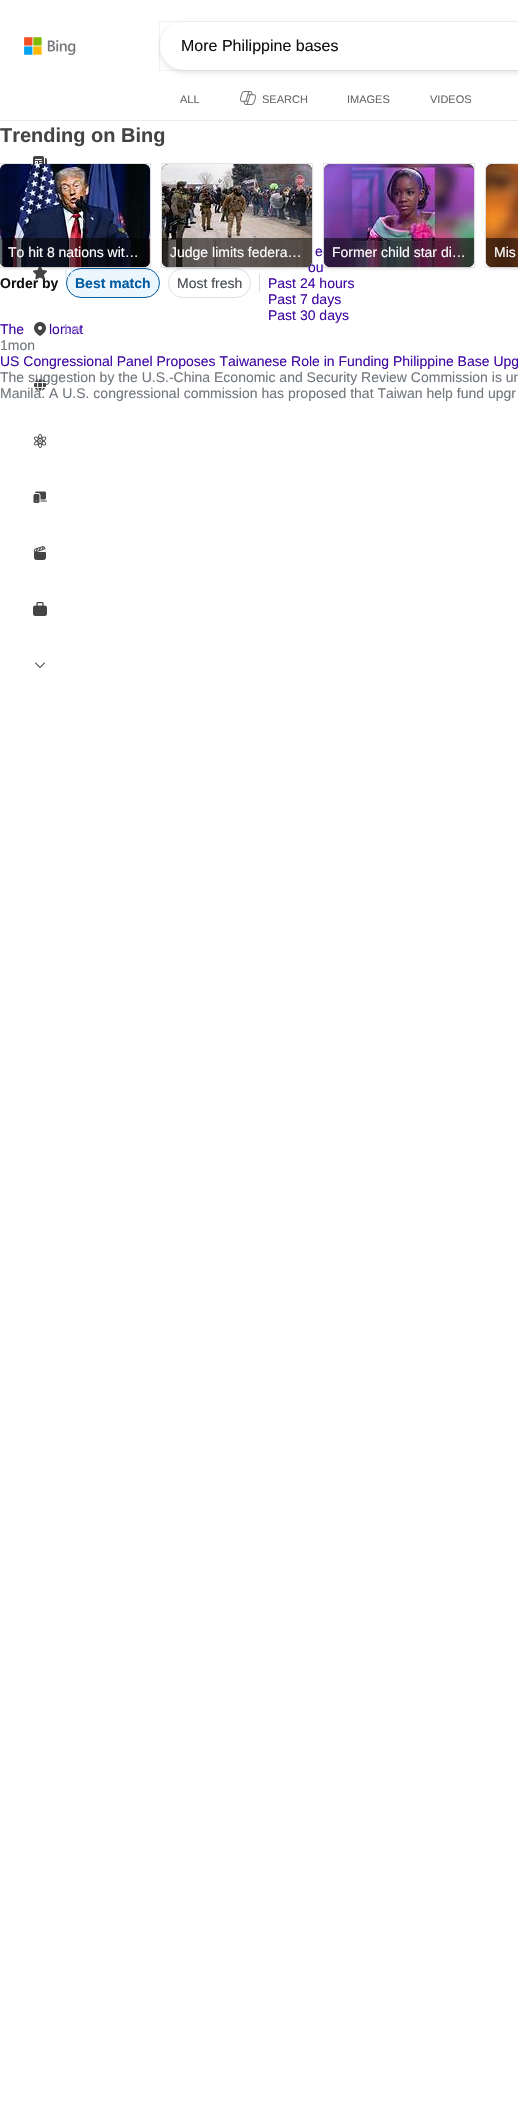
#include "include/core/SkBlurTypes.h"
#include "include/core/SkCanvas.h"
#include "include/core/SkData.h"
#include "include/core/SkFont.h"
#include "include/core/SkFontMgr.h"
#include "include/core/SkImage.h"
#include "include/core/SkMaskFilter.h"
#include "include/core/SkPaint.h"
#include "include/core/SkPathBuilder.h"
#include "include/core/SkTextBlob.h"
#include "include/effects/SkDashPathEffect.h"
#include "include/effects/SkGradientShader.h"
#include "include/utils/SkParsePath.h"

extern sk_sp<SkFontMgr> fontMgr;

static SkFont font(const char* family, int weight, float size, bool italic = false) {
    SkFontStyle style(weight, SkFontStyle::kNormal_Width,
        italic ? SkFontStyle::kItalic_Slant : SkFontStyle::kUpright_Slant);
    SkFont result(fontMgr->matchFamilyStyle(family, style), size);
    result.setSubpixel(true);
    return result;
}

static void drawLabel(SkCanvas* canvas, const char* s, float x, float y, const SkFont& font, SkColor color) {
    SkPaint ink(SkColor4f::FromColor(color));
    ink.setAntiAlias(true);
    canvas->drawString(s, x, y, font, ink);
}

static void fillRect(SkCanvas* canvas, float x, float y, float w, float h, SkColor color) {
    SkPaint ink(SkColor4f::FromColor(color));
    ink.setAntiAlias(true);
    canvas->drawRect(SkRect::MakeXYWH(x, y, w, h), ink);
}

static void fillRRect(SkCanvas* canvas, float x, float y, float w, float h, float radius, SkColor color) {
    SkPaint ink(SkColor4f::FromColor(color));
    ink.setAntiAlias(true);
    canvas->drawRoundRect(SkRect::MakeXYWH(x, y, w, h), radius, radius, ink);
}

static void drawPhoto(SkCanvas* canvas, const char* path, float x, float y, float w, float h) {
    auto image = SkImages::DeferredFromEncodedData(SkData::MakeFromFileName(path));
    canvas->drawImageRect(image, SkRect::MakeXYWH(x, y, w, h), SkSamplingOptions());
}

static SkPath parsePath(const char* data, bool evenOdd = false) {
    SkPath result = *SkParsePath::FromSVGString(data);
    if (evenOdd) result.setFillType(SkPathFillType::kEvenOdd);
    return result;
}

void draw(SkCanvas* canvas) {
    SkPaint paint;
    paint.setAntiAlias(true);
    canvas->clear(0xFFFFFFFF);
    fillRect(canvas, 0, 120, 518, 1, 0xFFECECEC);
    drawPhoto(canvas, "assets/img1.png", 24, 37, 52, 18);
    paint.setColor(0x17000000);
    paint.setMaskFilter(SkMaskFilter::MakeBlur(kNormal_SkBlurStyle, 2));
    canvas->drawRoundRect(SkRect::MakeXYWH(159, 23, 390, 50), 25, 25, paint);
    paint.setMaskFilter(nullptr);
    paint.setStroke(true);
    paint.setStrokeWidth(1);
    paint.setColor(0x0D000000);
    canvas->drawRect(SkRect::MakeXYWH(159.5f, 21.5f, 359, 49), paint);
    fillRRect(canvas, 160, 22, 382, 48, 24, 0xFFFFFFFF);
    SkFont font1 = font("Liberation Sans", 400, 16);
    drawLabel(canvas, "More Philippine bases", 181, 51, font1, 0xFF111111);
    SkFont font2 = font("Liberation Sans", 400, 11);
    drawLabel(canvas, "ALL", 180, 103, font2, 0xFF666666);
    drawPhoto(canvas, "assets/img2.png", 240, 91, 16, 14);
    drawLabel(canvas, "SEARCH", 262, 103, font2, 0xFF666666);
    drawLabel(canvas, "IMAGES", 347, 103, font2, 0xFF666666);
    drawLabel(canvas, "VIDEOS", 430, 103, font2, 0xFF666666);
    SkFont font3 = font("Liberation Sans", 700, 20);
    drawLabel(canvas, "Trending on Bing", 0, 142, font3, 0xFF444444);
    drawPhoto(canvas, "assets/img12.png", 33, 156, 14, 8);
    SkFont font4 = font("Liberation Sans", 700, 14);
    drawLabel(canvas, "Order by", 0, 288, font4, 0xFF111111);
    drawPhoto(canvas, "assets/img13.png", 33, 267, 14, 13);
    canvas->drawRect(SkRect::MakeXYWH(-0.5f, 163.5f, 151, 104), paint);
    paint.setStroke(false);
    paint.setColor(0xFFEBF6FF);
    canvas->drawRoundRect(SkRect::MakeXYWH(66.5f, 268.5f, 93, 29), 14.5f, 14.5f, paint);
    paint.setStroke(true);
    paint.setColor(0xFF005BA1);
    canvas->drawRoundRect(SkRect::MakeXYWH(66.5f, 268.5f, 93, 29), 14.5f, 14.5f, paint);
    paint.setStroke(false);
    paint.setColor(0x1A000000);
    paint.setMaskFilter(SkMaskFilter::MakeBlur(kNormal_SkBlurStyle, 1.5f));
    canvas->drawRoundRect(SkRect::MakeXYWH(0, 166, 150, 103), 6, 6, paint);
    paint.setMaskFilter(nullptr);
    paint.setStroke(true);
    paint.setColor(0x0D000000);
    canvas->drawRect(SkRect::MakeXYWH(-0.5f, 163.5f, 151, 104), paint);
    fillRRect(canvas, 0, 164, 150, 103, 6, 0xFF292827);
    drawPhoto(canvas, "assets/img3.png", 0, 164, 150, 78);
    drawPhoto(canvas, "assets/img4.png", 0, 242, 150, 25);
    paint.setStroke(false);
    paint.setColor(0x8C000000);
    canvas->drawPath(parsePath("M0 238H150V261C150 264.5 147.5 267 144 267H6C2.5 267 0 264.5 0 261Z"), paint);
    SkFont font5 = font("Liberation Sans", 400, 14);
    drawLabel(canvas, "To hit 8 nations wit…", 8, 257, font5, 0xFFFFFFFF);
    drawLabel(canvas, "ou", 308, 272, font5, 0xFF4007A2);
    paint.setStroke(true);
    paint.setColor(0x0D000000);
    canvas->drawRect(SkRect::MakeXYWH(161.5f, 163.5f, 151, 104), paint);
    paint.setColor(0xFFDADEE5);
    canvas->drawRoundRect(SkRect::MakeXYWH(168.5f, 268.5f, 82, 29), 14.5f, 14.5f, paint);
    fillRect(canvas, 259, 274, 1, 18, 0xFFDDDDDD);
    paint.setStroke(false);
    paint.setColor(0x1A000000);
    paint.setMaskFilter(SkMaskFilter::MakeBlur(kNormal_SkBlurStyle, 1.5f));
    canvas->drawRoundRect(SkRect::MakeXYWH(162, 166, 150, 103), 6, 6, paint);
    paint.setMaskFilter(nullptr);
    paint.setStroke(true);
    paint.setColor(0x0D000000);
    canvas->drawRect(SkRect::MakeXYWH(161.5f, 163.5f, 151, 104), paint);
    fillRRect(canvas, 162, 164, 150, 103, 6, 0xFF292827);
    drawPhoto(canvas, "assets/img5.png", 162, 164, 150, 78);
    drawPhoto(canvas, "assets/img6.png", 162, 242, 150, 25);
    paint.setStroke(false);
    paint.setColor(0x8C000000);
    canvas->drawPath(parsePath("M162 238H312V261C312 264.5 309.5 267 306 267H168C164.5 267 162 264.5 162 261Z"), paint);
    drawLabel(canvas, "Judge limits federa…", 170, 257, font5, 0xFFFFFFFF);
    drawPhoto(canvas, "assets/img11.png", 323, 252, 1, 1);
    paint.setStroke(true);
    paint.setColor(0x0D000000);
    canvas->drawRect(SkRect::MakeXYWH(323.5f, 163.5f, 151, 104), paint);
    paint.setStroke(false);
    paint.setColor(0x1A000000);
    paint.setMaskFilter(SkMaskFilter::MakeBlur(kNormal_SkBlurStyle, 1.5f));
    canvas->drawRoundRect(SkRect::MakeXYWH(324, 166, 150, 103), 6, 6, paint);
    paint.setMaskFilter(nullptr);
    paint.setStroke(true);
    paint.setColor(0x0D000000);
    canvas->drawRect(SkRect::MakeXYWH(323.5f, 163.5f, 151, 104), paint);
    fillRRect(canvas, 324, 164, 150, 103, 6, 0xFF292827);
    drawPhoto(canvas, "assets/img7.png", 324, 164, 150, 78);
    drawPhoto(canvas, "assets/img8.png", 324, 242, 150, 25);
    paint.setStroke(false);
    paint.setColor(0x8C000000);
    canvas->drawPath(parsePath("M324 238H474V261C474 264.5 471.5 267 468 267H330C326.5 267 324 264.5 324 261Z"), paint);
    drawLabel(canvas, "Former child star di…", 332, 257, font5, 0xFFFFFFFF);
    paint.setStroke(true);
    paint.setColor(0xFFF2F2F2);
    canvas->drawRoundRect(SkRect::MakeXYWH(485.5f, 163.5f, 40, 104), 6.5f, 6.5f, paint);
    paint.setStroke(false);
    paint.setColor(0x1A000000);
    paint.setMaskFilter(SkMaskFilter::MakeBlur(kNormal_SkBlurStyle, 1.5f));
    canvas->drawRoundRect(SkRect::MakeXYWH(486, 166, 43, 103), 6, 6, paint);
    paint.setMaskFilter(nullptr);
    paint.setStroke(true);
    paint.setColor(0x0D000000);
    canvas->drawRect(SkRect::MakeXYWH(485.5f, 163.5f, 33, 104), paint);
    fillRRect(canvas, 486, 164, 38, 103, 6, 0xFF292827);
    drawPhoto(canvas, "assets/img9.png", 486, 164, 32, 76);
    drawPhoto(canvas, "assets/img10.png", 486, 240, 32, 27);
    paint.setStroke(false);
    paint.setColor(0x8C000000);
    canvas->drawPath(parsePath("M486 238H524V261C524 264.5 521.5 267 518 267H492C488.5 267 486 264.5 486 261Z"), paint);
    drawLabel(canvas, "Mis", 494, 257, font5, 0xFFFFFFFF);
    drawLabel(canvas, "Best match", 75, 288, font4, 0xFF005BA1);
    drawLabel(canvas, "Most fresh", 177, 288, font5, 0xFF474B50);
    drawLabel(canvas, "e", 315, 256, font5, 0xFF4007A2);
    drawLabel(canvas, "Past 24 hours", 268, 288, font5, 0xFF4007A2);
    drawLabel(canvas, "Past 7 days", 268, 304, font5, 0xFF4007A2);
    drawLabel(canvas, "Past 30 days", 268, 320, font5, 0xFF4007A2);
    drawLabel(canvas, "The", 0, 334, font5, 0xFF4007A2);
    drawLabel(canvas, "lomat", 49, 334, font5, 0xFF4007A2);
    drawLabel(canvas, "1mon", 0, 350, font5, 0xFF71777D);
    drawLabel(canvas, "US Congressional Panel Proposes Taiwanese Role in Funding Philippine Base Upg", 0, 366, font5, 0xFF4007A2);
    drawLabel(canvas, "The suggestion by the U.S.-China Economic and Security Review Commission is un", 0, 382, font5, 0xFF71777D);
    drawLabel(canvas, "Manila. A U.S. congressional commission has proposed that Taiwan help fund upgr", 0, 398, font5, 0xFF71777D);
    SkFont font6 = font("Liberation Sans", 400, 13);
    drawLabel(canvas, "U", 64, 277, font6, 0xFFDCEAF6);
    drawPhoto(canvas, "assets/img14.png", 34, 322, 12, 14);
    canvas->save();
    canvas->clipRect(SkRect::MakeXYWH(0, 121, 80, 682));
    drawLabel(canvas, "Loc", 64, 333, font6, 0xFFB199D9);
    canvas->restore();
    drawPhoto(canvas, "assets/img15.png", 34, 379, 12, 12);
    drawPhoto(canvas, "assets/img16.png", 34, 434, 13, 14);
    drawPhoto(canvas, "assets/img17.png", 33, 491, 14, 12);
    drawPhoto(canvas, "assets/img18.png", 33, 546, 13, 14);
    drawPhoto(canvas, "assets/img19.png", 33, 602, 14, 14);
    drawPhoto(canvas, "assets/img20.png", 35, 662, 10, 6);
}
